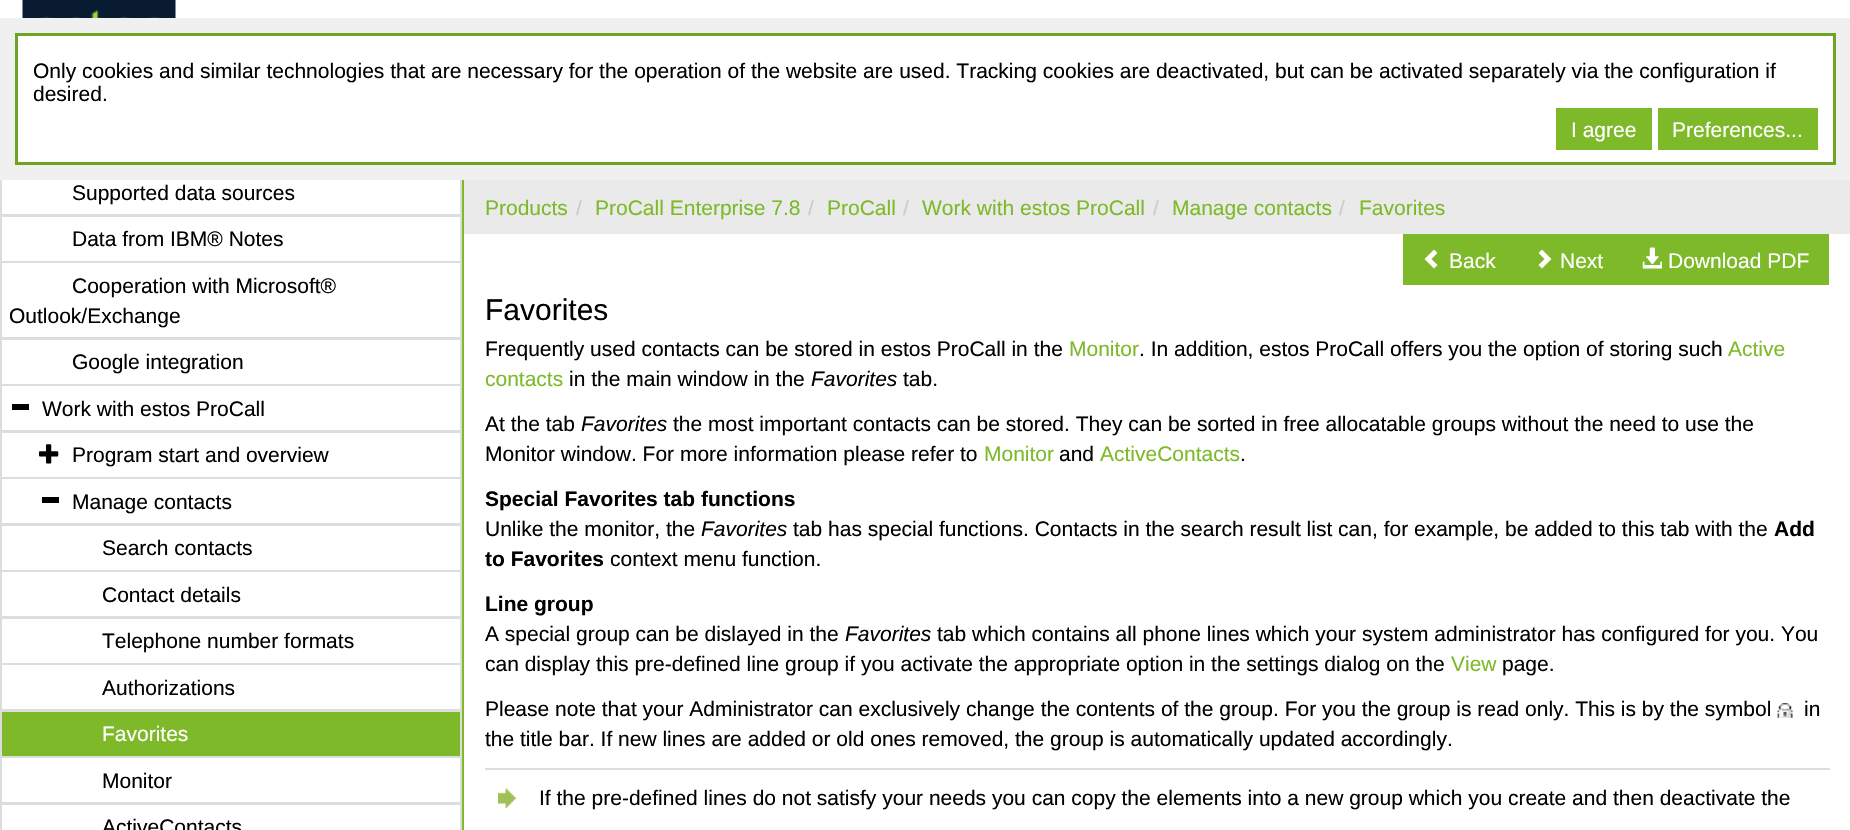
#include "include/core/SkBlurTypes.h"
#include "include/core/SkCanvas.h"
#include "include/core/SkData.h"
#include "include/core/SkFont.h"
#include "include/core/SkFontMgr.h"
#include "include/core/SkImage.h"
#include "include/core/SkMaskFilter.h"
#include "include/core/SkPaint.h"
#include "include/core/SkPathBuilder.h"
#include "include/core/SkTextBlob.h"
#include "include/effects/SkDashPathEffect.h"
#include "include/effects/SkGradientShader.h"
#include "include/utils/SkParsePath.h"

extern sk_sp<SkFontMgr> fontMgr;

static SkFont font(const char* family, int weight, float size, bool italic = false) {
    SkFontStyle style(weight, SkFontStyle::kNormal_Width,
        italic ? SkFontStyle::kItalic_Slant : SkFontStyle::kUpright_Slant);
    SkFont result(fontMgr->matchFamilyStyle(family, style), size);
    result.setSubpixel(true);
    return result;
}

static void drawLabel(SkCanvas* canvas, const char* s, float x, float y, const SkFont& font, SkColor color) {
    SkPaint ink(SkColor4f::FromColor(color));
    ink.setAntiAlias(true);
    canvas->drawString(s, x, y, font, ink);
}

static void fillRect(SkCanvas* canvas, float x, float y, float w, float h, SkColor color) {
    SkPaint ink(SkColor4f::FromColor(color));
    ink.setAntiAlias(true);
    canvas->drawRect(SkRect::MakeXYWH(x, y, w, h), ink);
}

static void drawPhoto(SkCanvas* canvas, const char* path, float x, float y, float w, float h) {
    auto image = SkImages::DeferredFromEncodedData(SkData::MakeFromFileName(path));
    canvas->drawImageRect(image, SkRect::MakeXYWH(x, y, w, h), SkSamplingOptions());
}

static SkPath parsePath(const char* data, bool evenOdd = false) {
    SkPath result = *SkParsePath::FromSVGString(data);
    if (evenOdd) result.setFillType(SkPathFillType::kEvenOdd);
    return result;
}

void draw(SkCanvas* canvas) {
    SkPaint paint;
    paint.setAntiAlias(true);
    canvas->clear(0xFFFFFFFF);
    drawPhoto(canvas, "assets/img1.png", 22, 0, 154, 18);
    paint.setStroke(true);
    paint.setStrokeWidth(2);
    paint.setColor(0xFFDDDDDD);
    canvas->drawRect(SkRect::MakeXYWH(1, 169, 460, 46), paint);
    fillRect(canvas, 0, 18, 1850, 162, 0xFFF1F0F0);
    paint.setStroke(false);
    paint.setColor(0xFFFFFFFF);
    canvas->drawRect(SkRect::MakeXYWH(16.5f, 34.5f, 1818, 129), paint);
    paint.setStroke(true);
    paint.setStrokeWidth(3);
    paint.setColor(0xFF6FA423);
    canvas->drawRect(SkRect::MakeXYWH(16.5f, 34.5f, 1818, 129), paint);
    SkFont font1 = font("Liberation Sans", 400, 21);
    drawLabel(canvas, "Only cookies and similar technologies that are necessary for the operation of the website are used. Tracking cookies are deactivated, but can be activated separately via the configuration if", 33, 78, font1, 0xFF000000);
    drawLabel(canvas, "desired.", 33, 101, font1, 0xFF000000);
    fillRect(canvas, 1556, 108, 96, 42, 0xFF7DB928);
    drawLabel(canvas, "I agree", 1571, 137, font1, 0xFFFFFFFF);
    fillRect(canvas, 1658, 108, 160, 42, 0xFF7DB928);
    drawLabel(canvas, "Preferences...", 1672, 137, font1, 0xFFFFFFFF);
    fillRect(canvas, 462, 180, 2, 650, 0xFF7DB928);
    drawLabel(canvas, "Supported data sources", 72, 200, font1, 0xFF000000);
    paint.setStrokeWidth(2);
    paint.setColor(0xFFDDDDDD);
    canvas->drawRect(SkRect::MakeXYWH(1, 216, 460, 46), paint);
    drawLabel(canvas, "Data from IBM® Notes", 72, 246, font1, 0xFF000000);
    canvas->drawRect(SkRect::MakeXYWH(1, 262, 460, 76), paint);
    drawLabel(canvas, "Cooperation with Microsoft®", 72, 293, font1, 0xFF000000);
    drawLabel(canvas, "Outlook/Exchange", 9, 323, font1, 0xFF000000);
    canvas->drawRect(SkRect::MakeXYWH(1, 339, 460, 46), paint);
    drawLabel(canvas, "Google integration", 72, 369, font1, 0xFF000000);
    canvas->drawRect(SkRect::MakeXYWH(1, 385, 460, 46), paint);
    fillRect(canvas, 12, 404, 17, 6, 0xFF000000);
    drawLabel(canvas, "Work with estos ProCall", 42, 416, font1, 0xFF000000);
    canvas->drawRect(SkRect::MakeXYWH(1, 432, 460, 46), paint);
    drawPhoto(canvas, "assets/img2.png", 39, 444, 20, 20);
    drawLabel(canvas, "Program start and overview", 72, 462, font1, 0xFF000000);
    canvas->drawRect(SkRect::MakeXYWH(1, 478, 460, 46), paint);
    fillRect(canvas, 42, 497, 17, 6, 0xFF000000);
    drawLabel(canvas, "Manage contacts", 72, 509, font1, 0xFF000000);
    canvas->drawRect(SkRect::MakeXYWH(1, 525, 460, 46), paint);
    drawLabel(canvas, "Search contacts", 102, 555, font1, 0xFF000000);
    canvas->drawRect(SkRect::MakeXYWH(1, 571, 460, 46), paint);
    drawLabel(canvas, "Contact details", 102, 602, font1, 0xFF000000);
    canvas->drawRect(SkRect::MakeXYWH(1, 618, 460, 46), paint);
    drawLabel(canvas, "Telephone number formats", 102, 648, font1, 0xFF000000);
    canvas->drawRect(SkRect::MakeXYWH(1, 664, 460, 46), paint);
    drawLabel(canvas, "Authorizations", 102, 695, font1, 0xFF000000);
    paint.setStroke(false);
    paint.setColor(0xFF7DB928);
    canvas->drawRect(SkRect::MakeXYWH(1, 711, 460, 46), paint);
    paint.setStroke(true);
    paint.setColor(0xFFDDDDDD);
    canvas->drawRect(SkRect::MakeXYWH(1, 711, 460, 46), paint);
    drawLabel(canvas, "Favorites", 102, 741, font1, 0xFFFFFFFF);
    canvas->drawRect(SkRect::MakeXYWH(1, 757, 460, 46), paint);
    drawLabel(canvas, "Monitor", 102, 788, font1, 0xFF000000);
    canvas->drawRect(SkRect::MakeXYWH(1, 804, 460, 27), paint);
    drawLabel(canvas, "ActiveContacts", 102, 834, font1, 0xFF000000);
    fillRect(canvas, 464, 180, 1386, 54, 0xFFEAEAEA);
    drawLabel(canvas, "Products", 485, 215, font1, 0xFF7DB928);
    drawLabel(canvas, "/", 576, 215, font1, 0xFFCCCCCC);
    drawLabel(canvas, "ProCall Enterprise 7.8", 595, 215, font1, 0xFF7DB928);
    drawLabel(canvas, "/", 808, 215, font1, 0xFFCCCCCC);
    drawLabel(canvas, "ProCall", 827, 215, font1, 0xFF7DB928);
    drawLabel(canvas, "/", 903, 215, font1, 0xFFCCCCCC);
    drawLabel(canvas, "Work with estos ProCall", 922, 215, font1, 0xFF7DB928);
    drawLabel(canvas, "/", 1153, 215, font1, 0xFFCCCCCC);
    drawLabel(canvas, "Manage contacts", 1172, 215, font1, 0xFF7DB928);
    drawLabel(canvas, "/", 1339, 215, font1, 0xFFCCCCCC);
    drawLabel(canvas, "Favorites", 1359, 215, font1, 0xFF7DB928);
    fillRect(canvas, 1403, 234, 426, 51, 0xFF7DB928);
    paint.setStroke(false);
    paint.setColor(0xFFFFFFFF);
    canvas->drawPath(parsePath("M1437.5 253L1431.5 259L1437.5 265L1434 268.5L1424.5 259L1434 249.5Z"), paint);
    drawLabel(canvas, "Back", 1449, 268, font1, 0xFFFFFFFF);
    canvas->drawPath(parsePath("M1551.5 259L1542 268.5L1538.5 265L1544.5 259L1538.5 253L1542 249.5Z"), paint);
    drawLabel(canvas, "Next", 1560, 268, font1, 0xFFFFFFFF);
    drawPhoto(canvas, "assets/img3.png", 1642, 247, 20, 22);
    drawLabel(canvas, "Download PDF", 1668, 268, font1, 0xFFFFFFFF);
    SkFont font2 = font("Liberation Sans", 400, 30);
    drawLabel(canvas, "Favorites", 485, 320, font2, 0xFF000000);
    drawLabel(canvas, "Frequently used contacts can be stored in estos ProCall in the", 485, 356, font1, 0xFF000000);
    drawLabel(canvas, "Monitor", 1069, 356, font1, 0xFF7DB928);
    drawLabel(canvas, ". In addition, estos ProCall offers you the option of storing such", 1139, 356, font1, 0xFF000000);
    drawLabel(canvas, "Active", 1728, 356, font1, 0xFF7DB928);
    drawLabel(canvas, "contacts", 485, 386, font1, 0xFF7DB928);
    drawLabel(canvas, "in the main window in the", 569, 386, font1, 0xFF000000);
    SkFont font3 = font("Liberation Sans", 400, 21, true);
    drawLabel(canvas, "Favorites", 811, 386, font3, 0xFF000000);
    drawLabel(canvas, "tab.", 903, 386, font1, 0xFF000000);
    drawLabel(canvas, "At the tab", 485, 431, font1, 0xFF000000);
    drawLabel(canvas, "Favorites", 581, 431, font3, 0xFF000000);
    drawLabel(canvas, "the most important contacts can be stored. They can be sorted in free allocatable groups without the need to use the", 673, 431, font1, 0xFF000000);
    drawLabel(canvas, "Monitor window. For more information please refer to", 485, 461, font1, 0xFF000000);
    drawLabel(canvas, "Monitor", 984, 461, font1, 0xFF7DB928);
    drawLabel(canvas, "and", 1059, 461, font1, 0xFF000000);
    drawLabel(canvas, "ActiveContacts", 1100, 461, font1, 0xFF7DB928);
    drawLabel(canvas, ".", 1240, 461, font1, 0xFF000000);
    SkFont font4 = font("Liberation Sans", 700, 21);
    drawLabel(canvas, "Special Favorites tab functions", 485, 506, font4, 0xFF000000);
    drawLabel(canvas, "Unlike the monitor, the", 485, 536, font1, 0xFF000000);
    drawLabel(canvas, "Favorites", 701, 536, font3, 0xFF000000);
    drawLabel(canvas, "tab has special functions. Contacts in the search result list can, for example, be added to this tab with the", 793, 536, font1, 0xFF000000);
    drawLabel(canvas, "Add", 1774, 536, font4, 0xFF000000);
    drawLabel(canvas, "to Favorites", 485, 566, font4, 0xFF000000);
    drawLabel(canvas, "context menu function.", 610, 566, font1, 0xFF000000);
    drawLabel(canvas, "Line group", 485, 611, font4, 0xFF000000);
    drawLabel(canvas, "A special group can be dislayed in the", 485, 641, font1, 0xFF000000);
    drawLabel(canvas, "Favorites", 845, 641, font3, 0xFF000000);
    drawLabel(canvas, "tab which contains all phone lines which your system administrator has configured for you. You", 937, 641, font1, 0xFF000000);
    drawLabel(canvas, "can display this pre-defined line group if you activate the appropriate option in the settings dialog on the", 485, 671, font1, 0xFF000000);
    drawLabel(canvas, "View", 1451, 671, font1, 0xFF7DB928);
    drawLabel(canvas, "page.", 1502, 671, font1, 0xFF000000);
    drawLabel(canvas, "Please note that your Administrator can exclusively change the contents of the group. For you the group is read only. This is by the symbol", 485, 716, font1, 0xFF000000);
    drawPhoto(canvas, "assets/img4.png", 1777, 703, 16, 15);
    drawLabel(canvas, "in", 1804, 716, font1, 0xFF000000);
    drawLabel(canvas, "the title bar. If new lines are added or old ones removed, the group is automatically updated accordingly.", 485, 746, font1, 0xFF000000);
    drawPhoto(canvas, "assets/img5.png", 498, 788, 18, 20);
    fillRect(canvas, 485, 768, 1345, 2, 0xFFDDDDDD);
    drawLabel(canvas, "If the pre-defined lines do not satisfy your needs you can copy the elements into a new group which you create and then deactivate the", 539, 805, font1, 0xFF000000);
}
